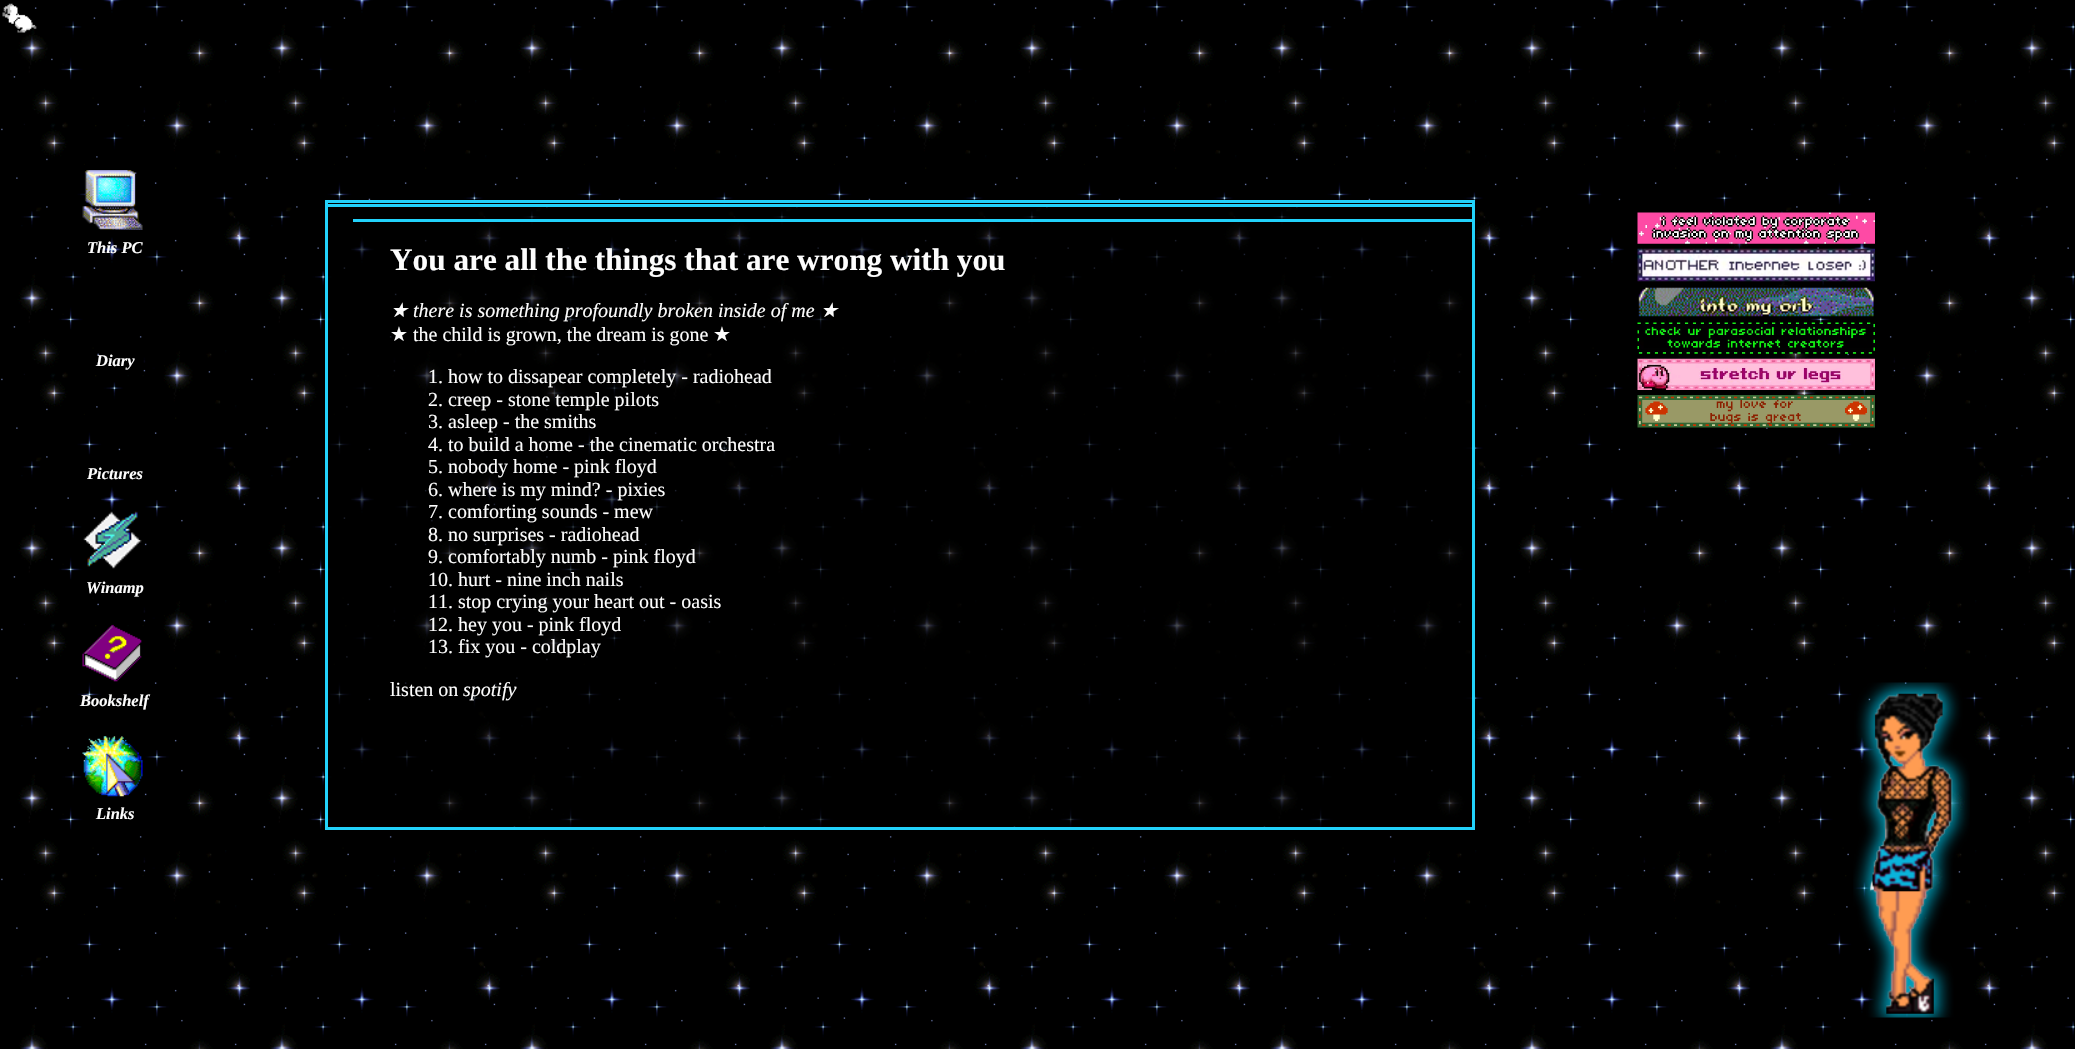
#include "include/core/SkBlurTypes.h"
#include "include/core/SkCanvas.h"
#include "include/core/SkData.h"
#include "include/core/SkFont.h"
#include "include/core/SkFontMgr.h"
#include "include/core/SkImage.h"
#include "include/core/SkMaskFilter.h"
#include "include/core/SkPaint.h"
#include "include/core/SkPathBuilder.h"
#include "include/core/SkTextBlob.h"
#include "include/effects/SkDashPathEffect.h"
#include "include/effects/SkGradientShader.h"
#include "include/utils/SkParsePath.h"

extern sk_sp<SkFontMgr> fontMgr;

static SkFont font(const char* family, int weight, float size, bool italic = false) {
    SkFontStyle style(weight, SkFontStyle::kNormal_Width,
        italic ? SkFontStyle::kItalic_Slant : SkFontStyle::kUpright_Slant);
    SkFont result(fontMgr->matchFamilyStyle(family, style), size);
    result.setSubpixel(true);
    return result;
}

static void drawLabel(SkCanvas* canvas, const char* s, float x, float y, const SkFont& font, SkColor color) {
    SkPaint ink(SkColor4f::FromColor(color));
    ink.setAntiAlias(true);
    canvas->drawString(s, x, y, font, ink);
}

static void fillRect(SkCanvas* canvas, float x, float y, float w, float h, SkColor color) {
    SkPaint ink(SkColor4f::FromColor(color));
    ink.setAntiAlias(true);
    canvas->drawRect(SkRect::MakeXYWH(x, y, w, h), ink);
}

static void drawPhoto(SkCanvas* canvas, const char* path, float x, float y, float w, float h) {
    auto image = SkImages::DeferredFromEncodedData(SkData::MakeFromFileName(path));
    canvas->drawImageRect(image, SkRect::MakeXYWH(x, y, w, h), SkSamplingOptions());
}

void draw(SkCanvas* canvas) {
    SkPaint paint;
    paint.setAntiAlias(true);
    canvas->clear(0xFF000000);
    drawPhoto(canvas, "assets/img1.png", 1, 0, 2074, 1049);
    drawPhoto(canvas, "assets/img2.png", 2, 3, 35, 30);
    drawPhoto(canvas, "assets/img3.png", 82, 170, 61, 60);
    SkFont font1 = font("Liberation Serif", 700, 16.5f, true);
    drawLabel(canvas, "This PC", 87, 253, font1, 0xFFFDFDFD);
    drawLabel(canvas, "Diary", 96, 366, font1, 0xFFFDFDFD);
    drawLabel(canvas, "Pictures", 87, 479, font1, 0xFFFDFDFD);
    drawPhoto(canvas, "assets/img4.png", 83, 511, 59, 58);
    drawLabel(canvas, "Winamp", 86, 593, font1, 0xFFFDFDFD);
    drawPhoto(canvas, "assets/img5.png", 82, 624, 60, 58);
    drawLabel(canvas, "Bookshelf", 80, 706, font1, 0xFFFDFDFD);
    drawPhoto(canvas, "assets/img6.png", 82, 736, 61, 61);
    drawLabel(canvas, "Links", 96, 819, font1, 0xFFFDFDFD);
    paint.setColor(0xB3000000);
    canvas->drawRect(SkRect::MakeXYWH(326.5f, 201.5f, 1147, 627), paint);
    paint.setStroke(true);
    paint.setStrokeWidth(3);
    paint.setColor(0xFF22D2FB);
    canvas->drawRect(SkRect::MakeXYWH(326.5f, 201.5f, 1147, 627), paint);
    fillRect(canvas, 353, 219, 1120, 3, 0xFF22D2FB);
    fillRect(canvas, 328, 204, 1145, 3, 0xFF22D2FB);
    SkFont font2 = font("Liberation Serif", 700, 31.25f);
    drawLabel(canvas, "You are all the things that are wrong with you", 390, 270, font2, 0xFFFDFDFD);
    SkFont font3 = font("DejaVu Sans", 400, 20, true);
    drawLabel(canvas, "★", 390, 317, font3, 0xFFFDFDFD);
    SkFont font4 = font("Liberation Serif", 400, 20, true);
    drawLabel(canvas, "there is something profoundly broken inside of me", 413, 317, font4, 0xFFFDFDFD);
    drawLabel(canvas, "★", 820, 317, font3, 0xFFFDFDFD);
    SkFont font5 = font("DejaVu Sans", 400, 20);
    drawLabel(canvas, "★", 390, 341, font5, 0xFFFDFDFD);
    SkFont font6 = font("Liberation Serif", 400, 20);
    drawLabel(canvas, "the child is grown, the dream is gone", 413, 341, font6, 0xFFFDFDFD);
    drawLabel(canvas, "★", 713, 341, font5, 0xFFFDFDFD);
    drawLabel(canvas, "1. how to dissapear completely - radiohead", 428, 383, font6, 0xFFFDFDFD);
    drawLabel(canvas, "2. creep - stone temple pilots", 428, 406, font6, 0xFFFDFDFD);
    drawLabel(canvas, "3. asleep - the smiths", 428, 428, font6, 0xFFFDFDFD);
    drawLabel(canvas, "4. to build a home - the cinematic orchestra", 428, 451, font6, 0xFFFDFDFD);
    drawLabel(canvas, "5. nobody home - pink floyd", 428, 473, font6, 0xFFFDFDFD);
    drawLabel(canvas, "6. where is my mind? - pixies", 428, 496, font6, 0xFFFDFDFD);
    drawLabel(canvas, "7. comforting sounds - mew", 428, 518, font6, 0xFFFDFDFD);
    drawLabel(canvas, "8. no surprises - radiohead", 428, 541, font6, 0xFFFDFDFD);
    drawLabel(canvas, "9. comfortably numb - pink floyd", 428, 563, font6, 0xFFFDFDFD);
    drawLabel(canvas, "10. hurt - nine inch nails", 428, 586, font6, 0xFFFDFDFD);
    drawLabel(canvas, "11. stop crying your heart out - oasis", 428, 608, font6, 0xFFFDFDFD);
    drawLabel(canvas, "12. hey you - pink floyd", 428, 631, font6, 0xFFFDFDFD);
    drawLabel(canvas, "13. fix you - coldplay", 428, 653, font6, 0xFFFDFDFD);
    drawLabel(canvas, "listen on", 390, 696, font6, 0xFFFDFDFD);
    drawLabel(canvas, "spotify", 463, 696, font4, 0xFFFDFDFD);
    drawPhoto(canvas, "assets/img7.png", 1637, 212, 238, 32);
    drawPhoto(canvas, "assets/img8.png", 1637, 248, 238, 34);
    drawPhoto(canvas, "assets/img9.png", 1638, 286, 236, 32);
    drawPhoto(canvas, "assets/img10.png", 1637, 322, 238, 32);
    drawPhoto(canvas, "assets/img11.png", 1637, 358, 238, 32);
    drawPhoto(canvas, "assets/img12.png", 1637, 395, 238, 33);
    drawPhoto(canvas, "assets/img13.png", 1853, 682, 117, 336);
}
